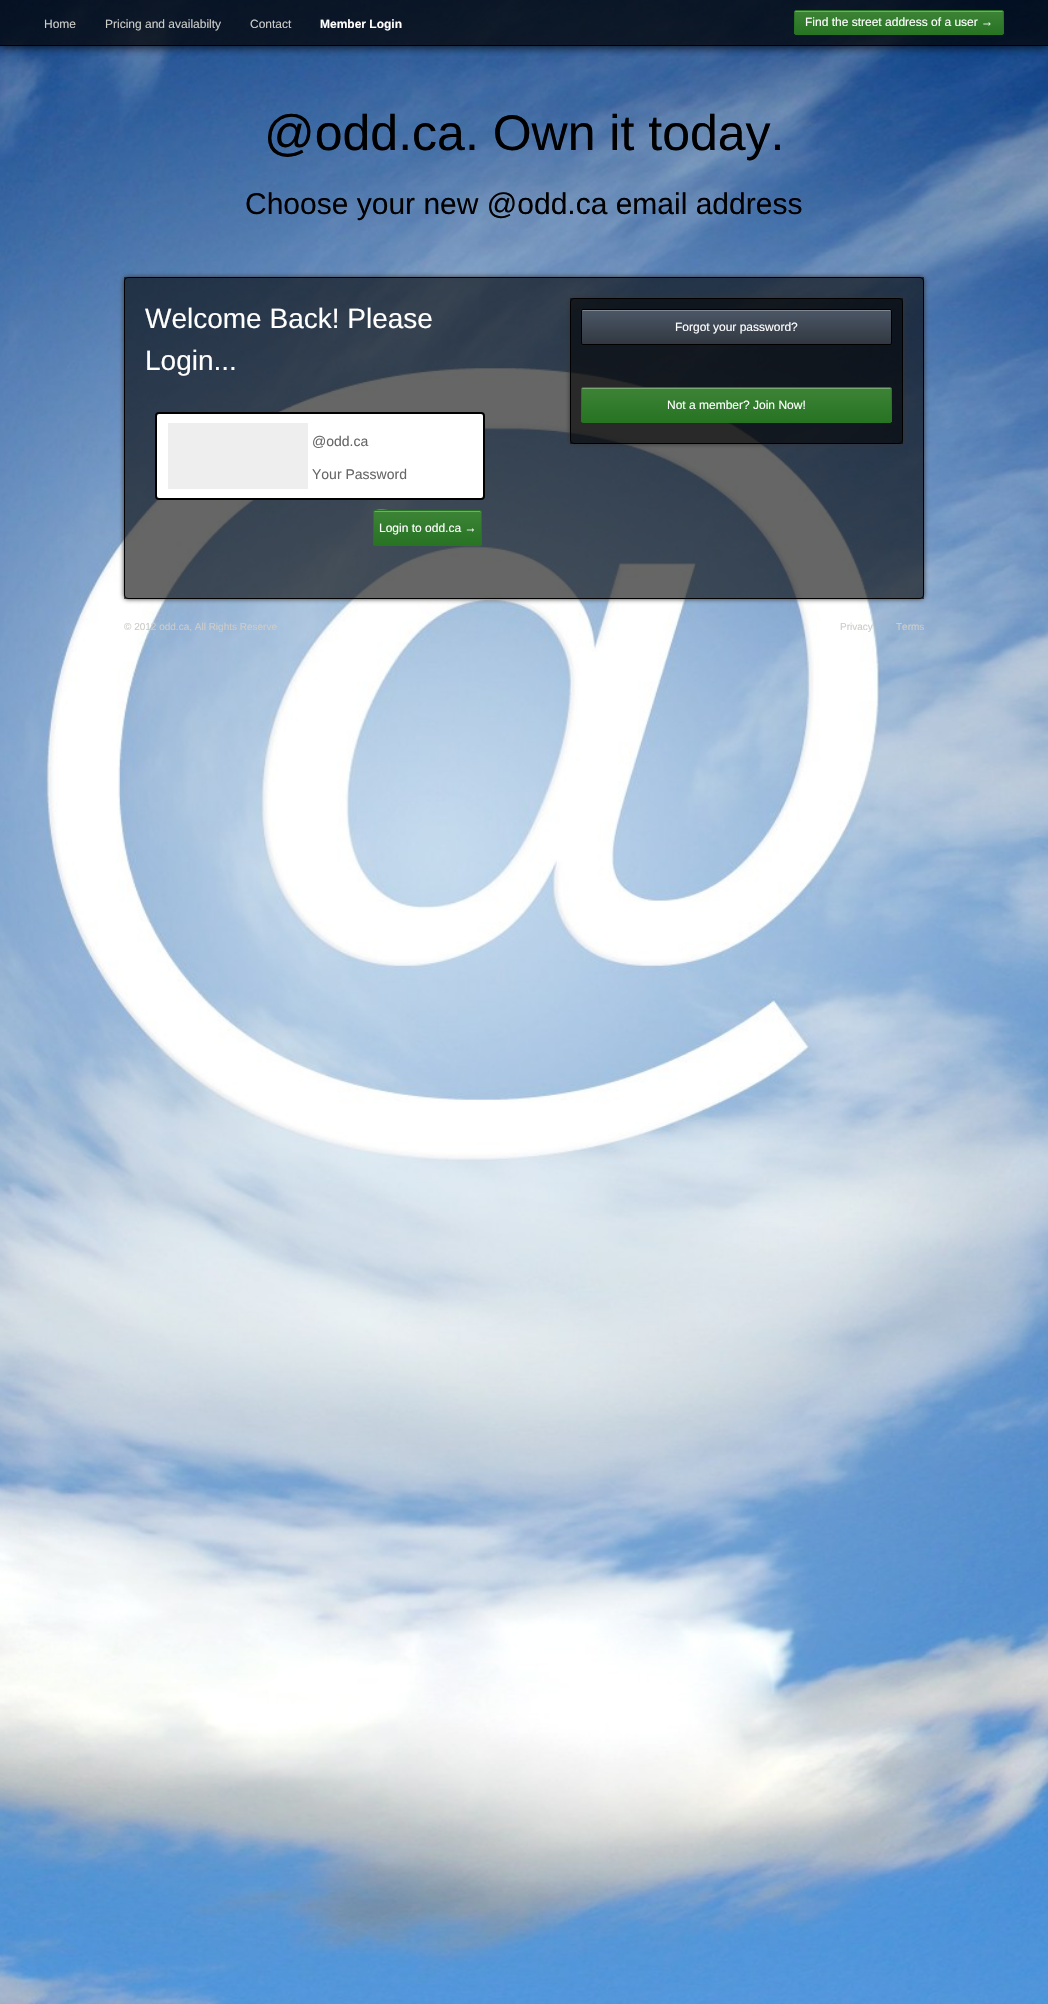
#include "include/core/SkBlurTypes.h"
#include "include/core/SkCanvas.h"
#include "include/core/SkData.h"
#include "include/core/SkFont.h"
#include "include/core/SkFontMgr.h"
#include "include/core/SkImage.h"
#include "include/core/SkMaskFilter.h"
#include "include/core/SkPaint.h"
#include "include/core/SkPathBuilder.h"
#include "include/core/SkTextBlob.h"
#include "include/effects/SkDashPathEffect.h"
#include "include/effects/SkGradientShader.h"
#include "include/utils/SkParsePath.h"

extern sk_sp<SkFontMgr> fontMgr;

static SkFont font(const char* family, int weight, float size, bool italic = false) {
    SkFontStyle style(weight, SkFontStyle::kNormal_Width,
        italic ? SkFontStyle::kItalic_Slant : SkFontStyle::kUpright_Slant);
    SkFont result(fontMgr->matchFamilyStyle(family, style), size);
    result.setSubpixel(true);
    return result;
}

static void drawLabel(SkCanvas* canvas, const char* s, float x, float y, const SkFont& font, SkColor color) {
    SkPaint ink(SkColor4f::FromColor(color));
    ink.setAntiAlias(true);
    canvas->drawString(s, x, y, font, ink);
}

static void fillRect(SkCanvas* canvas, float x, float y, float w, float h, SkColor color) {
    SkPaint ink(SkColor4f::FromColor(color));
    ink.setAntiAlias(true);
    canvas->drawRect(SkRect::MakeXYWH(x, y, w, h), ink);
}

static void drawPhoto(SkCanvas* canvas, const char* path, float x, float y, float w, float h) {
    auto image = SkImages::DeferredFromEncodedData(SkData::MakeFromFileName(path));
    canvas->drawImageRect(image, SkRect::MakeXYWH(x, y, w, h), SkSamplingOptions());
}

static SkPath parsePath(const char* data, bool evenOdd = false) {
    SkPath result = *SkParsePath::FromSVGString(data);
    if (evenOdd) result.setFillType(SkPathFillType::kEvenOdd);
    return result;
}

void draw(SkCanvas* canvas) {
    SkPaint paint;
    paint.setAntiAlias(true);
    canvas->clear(0xFFFFFFFF);
    drawPhoto(canvas, "assets/img1.png", 0, 0, 1048, 2004);
    canvas->save();
    canvas->clipRect(SkRect::MakeXYWH(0, 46, 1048, 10));
    paint.setColor(0xFF000000);
    paint.setMaskFilter(SkMaskFilter::MakeBlur(kNormal_SkBlurStyle, 5));
    canvas->drawRect(SkRect::MakeXYWH(0, 0, 1048, 46), paint);
    paint.setMaskFilter(nullptr);
    canvas->restore();
    fillRect(canvas, 0, 0, 1048, 45, 0xBD000000);
    fillRect(canvas, 0, 45, 1048, 1, 0xFF000000);
    SkFont font1 = font("Liberation Sans", 400, 12);
    drawLabel(canvas, "Home", 44, 28, font1, 0xFFCCCCC9);
    drawLabel(canvas, "Pricing and availabilty", 105, 28, font1, 0xFFCCCCC9);
    drawLabel(canvas, "Contact", 250, 28, font1, 0xFFCCCCC9);
    SkFont font2 = font("Liberation Sans", 700, 12);
    drawLabel(canvas, "Member Login", 320, 28, font2, 0xFFFFFFFF);
    canvas->save();
    canvas->clipPath(parsePath("M796 10H1002C1003 10 1004 11 1004 12V33C1004 34 1003 35 1002 35H796C795 35 794 34 794 33V12C794 11 795 10 796 10Z"), true);
    {
        const SkColor colors[] = {0xFF3D8336, 0xFF277423};
        const float stops[] = {0, 1};
        const SkPoint ends[] = {{899, 11}, {899, 34}};
        paint.setShader(SkGradientShader::MakeLinear(ends, colors, stops, 2, SkTileMode::kClamp));
        paint.setAlpha(255);
    }
    canvas->drawRect(SkRect::MakeXYWH(794, 11, 210, 23), paint);
    canvas->restore();
    paint.setShader(nullptr);
    paint.setColor(0xFF77A872);
    canvas->drawPath(parsePath("M796 12H1003V13C1003 12 1003 11 1002 11H796H795V13C795 12 795 12 796 12Z"), paint);
    paint.setStroke(true);
    paint.setStrokeWidth(1);
    paint.setColor(0xFF277423);
    canvas->drawRoundRect(SkRect::MakeXYWH(794.5f, 10.5f, 209, 24), 1.5f, 1.5f, paint);
    drawLabel(canvas, "Find the street address of a user →", 805, 26, font1, 0xFFFFFFFF);
    SkFont font3 = font("Liberation Sans", 400, 50);
    drawLabel(canvas, "@odd.ca. Own it today.", 264, 150, font3, 0xFF000000);
    SkFont font4 = font("Liberation Sans", 400, 30);
    drawLabel(canvas, "Choose your new @odd.ca email address", 245, 214, font4, 0xFF000000);
    canvas->save();
    canvas->clipPath(parsePath("M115 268H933V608H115ZM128 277H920C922 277 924 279 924 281V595C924 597 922 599 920 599H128C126 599 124 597 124 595V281C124 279 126 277 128 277Z", true), true);
    paint.setStroke(false);
    paint.setColor(0xFF333333);
    paint.setMaskFilter(SkMaskFilter::MakeBlur(kNormal_SkBlurStyle, 2.5f));
    canvas->drawRoundRect(SkRect::MakeXYWH(124, 277, 800, 322), 4, 4, paint);
    paint.setMaskFilter(nullptr);
    canvas->restore();
    fillRect(canvas, 124, 277, 800, 322, 0x99000000);
    paint.setStroke(true);
    paint.setColor(0xFF000000);
    canvas->drawRoundRect(SkRect::MakeXYWH(124.5f, 277.5f, 799, 321), 3.5f, 3.5f, paint);
    SkFont font5 = font("Liberation Sans", 400, 28);
    drawLabel(canvas, "Welcome Back! Please", 145, 328, font5, 0xFFFFFFFF);
    drawLabel(canvas, "Login...", 145, 370, font5, 0xFFFFFFFF);
    paint.setStroke(false);
    paint.setColor(0xFFFFFFFF);
    canvas->drawRoundRect(SkRect::MakeXYWH(156, 413, 328, 86), 3, 3, paint);
    paint.setStroke(true);
    paint.setStrokeWidth(2);
    paint.setColor(0xFF000000);
    canvas->drawRoundRect(SkRect::MakeXYWH(156, 413, 328, 86), 3, 3, paint);
    fillRect(canvas, 168, 423, 140, 66, 0xFFEEEEEE);
    SkFont font6 = font("Liberation Sans", 400, 14);
    drawLabel(canvas, "@odd.ca", 312, 446, font6, 0xFF666666);
    drawLabel(canvas, "Your Password", 312, 479, font6, 0xFF666666);
    canvas->save();
    canvas->clipPath(parsePath("M375 510H480C481 510 482 511 482 512V544C482 545 481 546 480 546H375C374 546 373 545 373 544V512C373 511 374 510 375 510Z"), true);
    paint.setStroke(false);
    {
        const SkColor colors[] = {0xFF3D8336, 0xFF277423};
        const float stops[] = {0, 1};
        const SkPoint ends[] = {{428, 511}, {428, 545}};
        paint.setShader(SkGradientShader::MakeLinear(ends, colors, stops, 2, SkTileMode::kClamp));
        paint.setAlpha(255);
    }
    canvas->drawRect(SkRect::MakeXYWH(373, 511, 109, 34), paint);
    canvas->restore();
    paint.setShader(nullptr);
    paint.setColor(0x4DFFFFFF);
    canvas->drawPath(parsePath("M375 512H481V513L480 511H392C392 511 374 506 374 513C374 512 374 512 375 512Z"), paint);
    paint.setStroke(true);
    paint.setStrokeWidth(1);
    paint.setColor(0xFF277423);
    canvas->drawRoundRect(SkRect::MakeXYWH(373.5f, 510.5f, 108, 35), 1.5f, 1.5f, paint);
    drawLabel(canvas, "Login to odd.ca →", 379, 532, font1, 0xFFFFFFFF);
    canvas->save();
    canvas->clipPath(parsePath("M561 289H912V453H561ZM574 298H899C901 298 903 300 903 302V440C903 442 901 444 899 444H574C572 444 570 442 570 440V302C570 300 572 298 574 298Z", true), true);
    paint.setStroke(false);
    paint.setColor(0xFF333333);
    paint.setMaskFilter(SkMaskFilter::MakeBlur(kNormal_SkBlurStyle, 2.5f));
    canvas->drawRoundRect(SkRect::MakeXYWH(570, 298, 333, 146), 4, 4, paint);
    paint.setMaskFilter(nullptr);
    canvas->restore();
    fillRect(canvas, 570, 298, 333, 146, 0x99000000);
    paint.setStroke(true);
    paint.setColor(0xFF000000);
    canvas->drawRoundRect(SkRect::MakeXYWH(570.5f, 298.5f, 332, 145), 3.5f, 3.5f, paint);
    canvas->save();
    canvas->clipPath(parsePath("M583 309H890C891 309 892 310 892 311V343C892 344 891 345 890 345H583C582 345 581 344 581 343V311C581 310 582 309 583 309Z"), true);
    paint.setStroke(false);
    {
        const SkColor colors[] = {0xFF4C5766, 0xFF313841};
        const float stops[] = {0, 1};
        const SkPoint ends[] = {{737, 310}, {737, 344}};
        paint.setShader(SkGradientShader::MakeLinear(ends, colors, stops, 2, SkTileMode::kClamp));
        paint.setAlpha(255);
    }
    canvas->drawRect(SkRect::MakeXYWH(581, 310, 311, 34), paint);
    canvas->restore();
    paint.setShader(nullptr);
    paint.setColor(0xFF828993);
    canvas->drawPath(parsePath("M583 311H890C891 311 891 311 891 312C891 311 891 310 890 310H583H582V312C582 311 582 311 583 311Z"), paint);
    paint.setStroke(true);
    paint.setColor(0xFF000000);
    canvas->drawRoundRect(SkRect::MakeXYWH(581.5f, 309.5f, 310, 35), 1.5f, 1.5f, paint);
    drawLabel(canvas, "Forgot your password?", 675, 331, font1, 0xFFFFFFFF);
    canvas->save();
    canvas->clipPath(parsePath("M583 387H890C891 387 892 388 892 389V421C892 422 891 423 890 423H583C582 423 581 422 581 421V389C581 388 582 387 583 387Z"), true);
    paint.setStroke(false);
    {
        const SkColor colors[] = {0xFF3D8336, 0xFF277423};
        const float stops[] = {0, 1};
        const SkPoint ends[] = {{737, 388}, {737, 422}};
        paint.setShader(SkGradientShader::MakeLinear(ends, colors, stops, 2, SkTileMode::kClamp));
        paint.setAlpha(255);
    }
    canvas->drawRect(SkRect::MakeXYWH(581, 388, 311, 34), paint);
    canvas->restore();
    paint.setShader(nullptr);
    paint.setColor(0xFF77A872);
    canvas->drawPath(parsePath("M583 389H890C891 389 891 389 891 390C891 389 891 388 890 388H583H582V390C582 389 582 389 583 389Z"), paint);
    paint.setStroke(true);
    paint.setColor(0xFF277423);
    canvas->drawRoundRect(SkRect::MakeXYWH(581.5f, 387.5f, 310, 35), 1.5f, 1.5f, paint);
    drawLabel(canvas, "Not a member? Join Now!", 667, 409, font1, 0xFFFFFFFF);
    SkFont font7 = font("Liberation Sans", 400, 10);
    drawLabel(canvas, "© 2012 odd.ca, All Rights Reserve", 124, 630, font7, 0xFFCCCCC9);
    drawLabel(canvas, "Privacy", 840, 630, font7, 0xFFCCCCC9);
    drawLabel(canvas, "Terms", 896, 630, font7, 0xFFCCCCC9);
}
